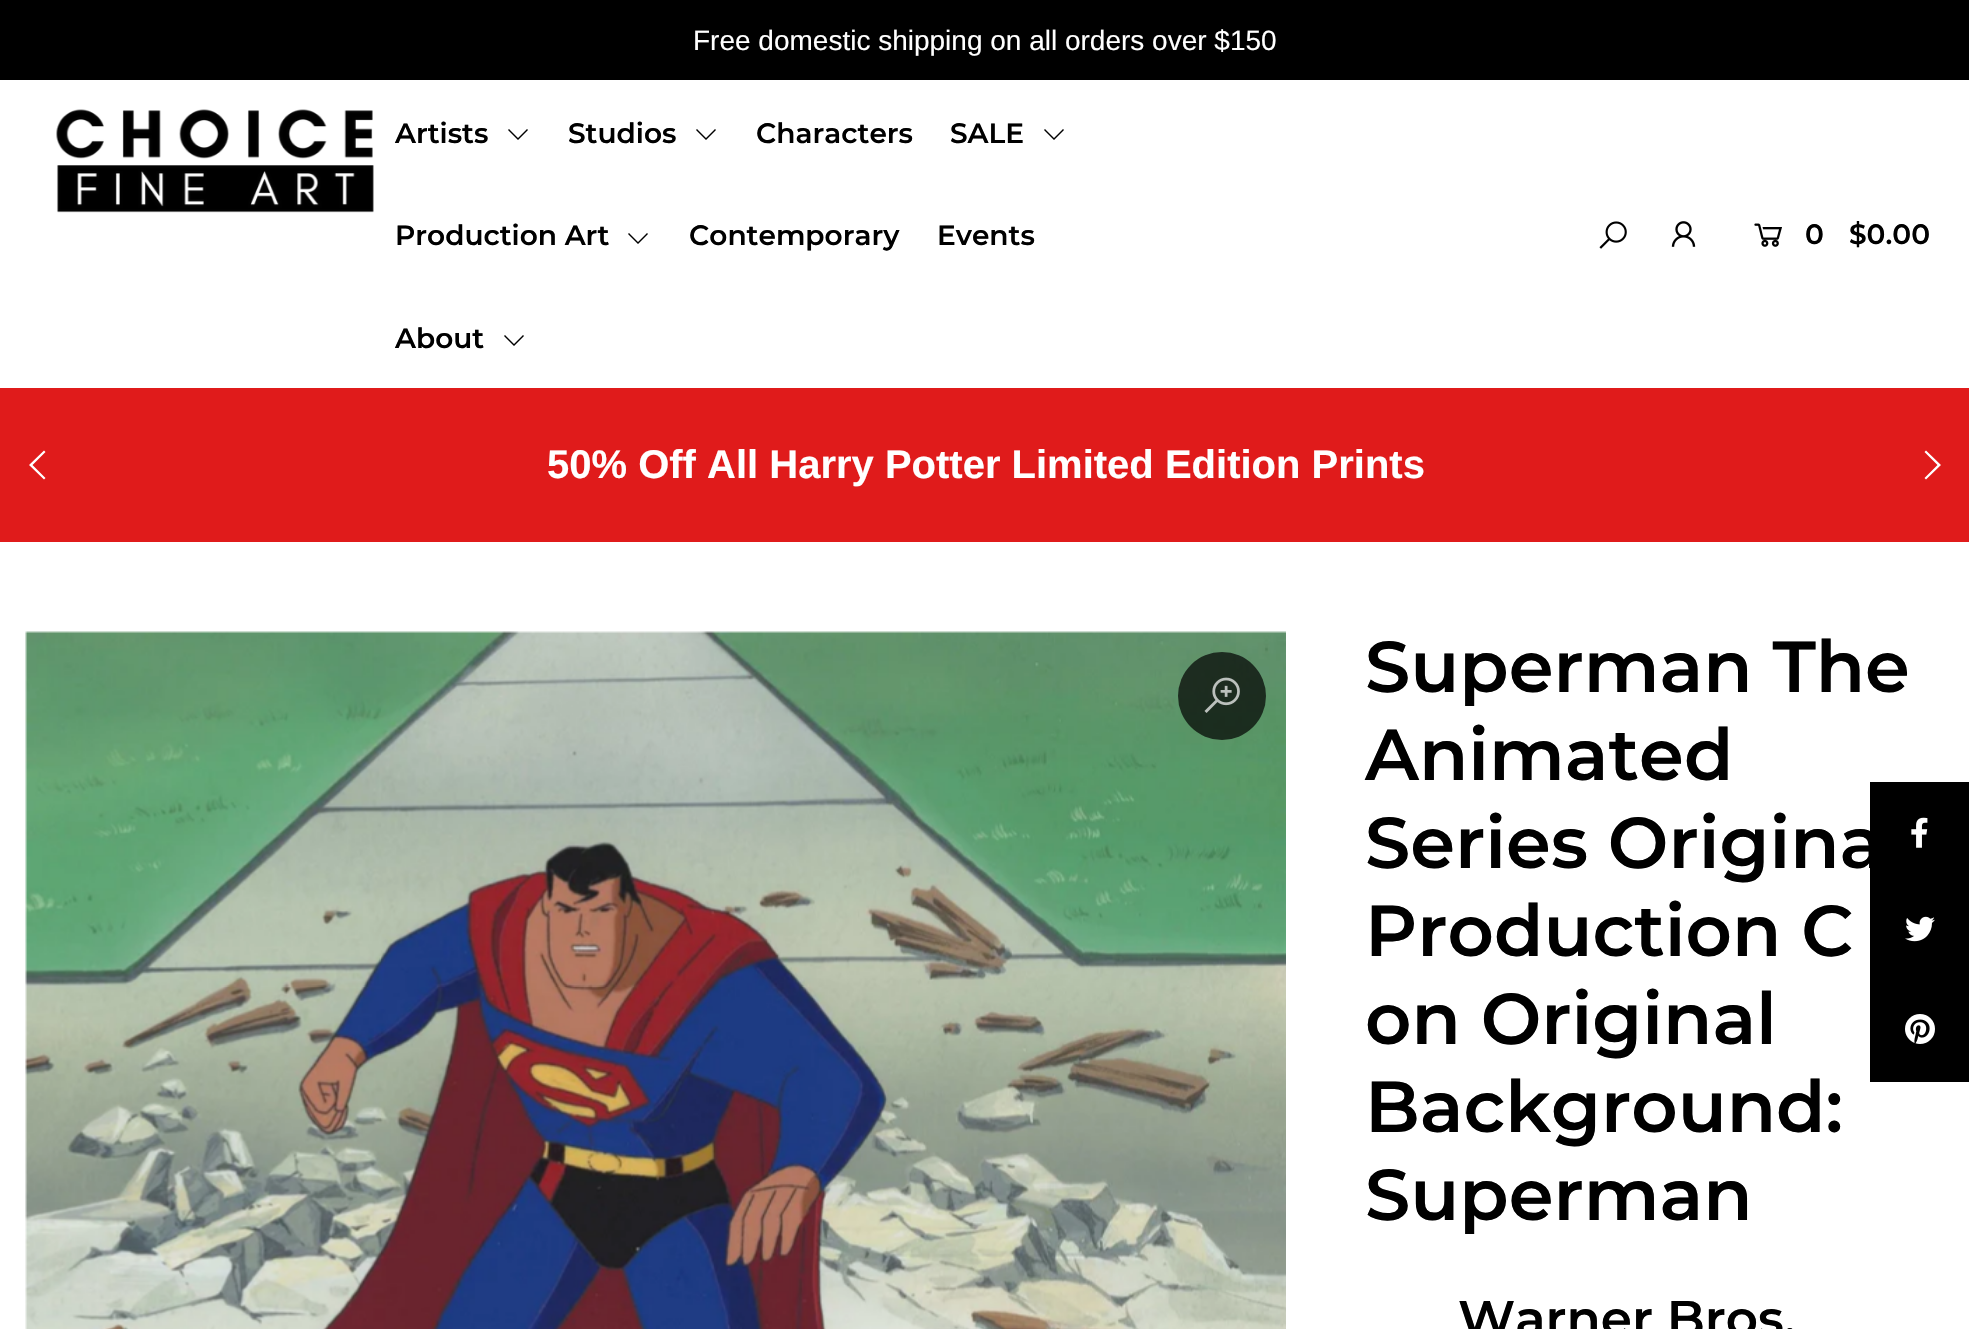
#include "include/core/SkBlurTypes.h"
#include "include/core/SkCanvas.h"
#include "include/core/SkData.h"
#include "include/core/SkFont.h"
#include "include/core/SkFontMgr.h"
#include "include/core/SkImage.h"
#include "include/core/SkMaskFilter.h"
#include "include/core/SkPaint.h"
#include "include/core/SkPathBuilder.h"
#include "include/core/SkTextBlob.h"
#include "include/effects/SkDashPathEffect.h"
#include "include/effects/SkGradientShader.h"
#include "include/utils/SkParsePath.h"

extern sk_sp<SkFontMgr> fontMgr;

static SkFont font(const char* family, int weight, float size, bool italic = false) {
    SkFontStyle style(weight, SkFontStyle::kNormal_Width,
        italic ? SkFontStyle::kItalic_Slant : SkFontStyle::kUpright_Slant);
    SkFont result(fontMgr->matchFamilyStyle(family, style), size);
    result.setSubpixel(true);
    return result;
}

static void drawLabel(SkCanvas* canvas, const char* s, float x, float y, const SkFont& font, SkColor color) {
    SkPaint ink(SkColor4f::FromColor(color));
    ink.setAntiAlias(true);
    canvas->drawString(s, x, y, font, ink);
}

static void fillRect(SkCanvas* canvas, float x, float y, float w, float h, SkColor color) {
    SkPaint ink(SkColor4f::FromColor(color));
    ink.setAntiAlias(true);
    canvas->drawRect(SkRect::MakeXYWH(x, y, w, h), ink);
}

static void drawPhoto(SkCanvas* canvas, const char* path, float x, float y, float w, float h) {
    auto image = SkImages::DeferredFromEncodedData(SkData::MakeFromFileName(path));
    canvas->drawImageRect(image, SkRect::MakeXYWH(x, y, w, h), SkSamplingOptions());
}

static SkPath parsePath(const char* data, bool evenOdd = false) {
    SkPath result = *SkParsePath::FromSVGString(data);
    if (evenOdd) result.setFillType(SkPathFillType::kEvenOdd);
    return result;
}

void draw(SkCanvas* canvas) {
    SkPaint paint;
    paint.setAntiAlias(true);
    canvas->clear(0xFFFFFFFF);
    fillRect(canvas, 0, 0, 1969, 80, 0xFF000000);
    SkFont font1 = font("Liberation Sans", 400, 28);
    drawLabel(canvas, "Free domestic shipping on all orders over $150", 693, 50, font1, 0xFFFFFFFF);
    drawPhoto(canvas, "assets/img1.png", 56, 109, 318, 104);
    SkFont font2 = font("Montserrat", 600, 28);
    drawLabel(canvas, "Artists", 395, 143, font2, 0xFF000000);
    paint.setColor(0xFF000000);
    canvas->drawPath(parsePath("M509 129L518 138L527 129L528 130L518 140L508 130Z"), paint);
    drawLabel(canvas, "Studios", 568, 143, font2, 0xFF000000);
    canvas->drawPath(parsePath("M697 129L706 138L715 129L716 130L706 140L696 130Z"), paint);
    drawLabel(canvas, "Characters", 756, 143, font2, 0xFF000000);
    drawLabel(canvas, "SALE", 950, 143, font2, 0xFF000000);
    canvas->drawPath(parsePath("M1045 129L1054 138L1063 129L1064 130L1054 140L1044 130Z"), paint);
    drawLabel(canvas, "Production Art", 395, 245, font2, 0xFF000000);
    canvas->drawPath(parsePath("M629 233L638 242L647 233L648 234L638 244L628 234Z"), paint);
    drawLabel(canvas, "Contemporary", 689, 245, font2, 0xFF000000);
    drawLabel(canvas, "Events", 937, 245, font2, 0xFF000000);
    drawLabel(canvas, "About", 395, 348, font2, 0xFF000000);
    canvas->drawPath(parsePath("M505 335L514 344L523 335L524 336L514 346L504 336Z"), paint);
    drawPhoto(canvas, "assets/img2.png", 1599, 221, 28, 28);
    drawPhoto(canvas, "assets/img3.png", 1671, 221, 25, 26);
    drawPhoto(canvas, "assets/img4.png", 1754, 223, 28, 24);
    drawLabel(canvas, "0", 1805, 244, font2, 0xFF000000);
    drawLabel(canvas, "$0.00", 1849, 244, font2, 0xFF000000);
    fillRect(canvas, 0, 388, 1969, 154, 0xFFE01B1B);
    paint.setColor(0xFFFFFFFF);
    canvas->drawPath(parsePath("M44 450.5L45.5 452L32.5 465L45.5 478L44 479.5L29 465Z"), paint);
    SkFont font3 = font("Liberation Sans", 700, 40);
    drawLabel(canvas, "50% Off All Harry Potter Limited Edition Prints", 547, 478, font3, 0xFFFFFFFF);
    canvas->drawPath(parsePath("M1926 450.5L1941 465L1926 479.5L1924.5 478L1937.5 465L1924.5 452Z"), paint);
    drawPhoto(canvas, "assets/img5.png", 25, 631, 1261, 698);
    paint.setColor(0xB3000000);
    canvas->drawCircle(1222, 696, 44, paint);
    drawPhoto(canvas, "assets/img6.png", 1204, 677, 36, 36);
    SkFont font4 = font("Montserrat", 600, 72);
    drawLabel(canvas, "Superman The", 1365, 692, font4, 0xFF000000);
    drawLabel(canvas, "Animated", 1365, 780, font4, 0xFF000000);
    drawLabel(canvas, "Series Origina", 1365, 868, font4, 0xFF000000);
    drawLabel(canvas, "Production C", 1365, 956, font4, 0xFF000000);
    drawLabel(canvas, "on Original", 1365, 1044, font4, 0xFF000000);
    drawLabel(canvas, "Background:", 1365, 1132, font4, 0xFF000000);
    drawLabel(canvas, "Superman", 1365, 1220, font4, 0xFF000000);
    SkFont font5 = font("Montserrat", 600, 50);
    drawLabel(canvas, "Warner Bros.", 1458, 1336, font5, 0xFF000000);
    fillRect(canvas, 1870, 782, 99, 300, 0xFF000000);
    drawPhoto(canvas, "assets/img7.png", 1911, 817, 17, 31);
    drawPhoto(canvas, "assets/img8.png", 1905, 916, 30, 26);
    drawPhoto(canvas, "assets/img9.png", 1905, 1014, 30, 30);
}
